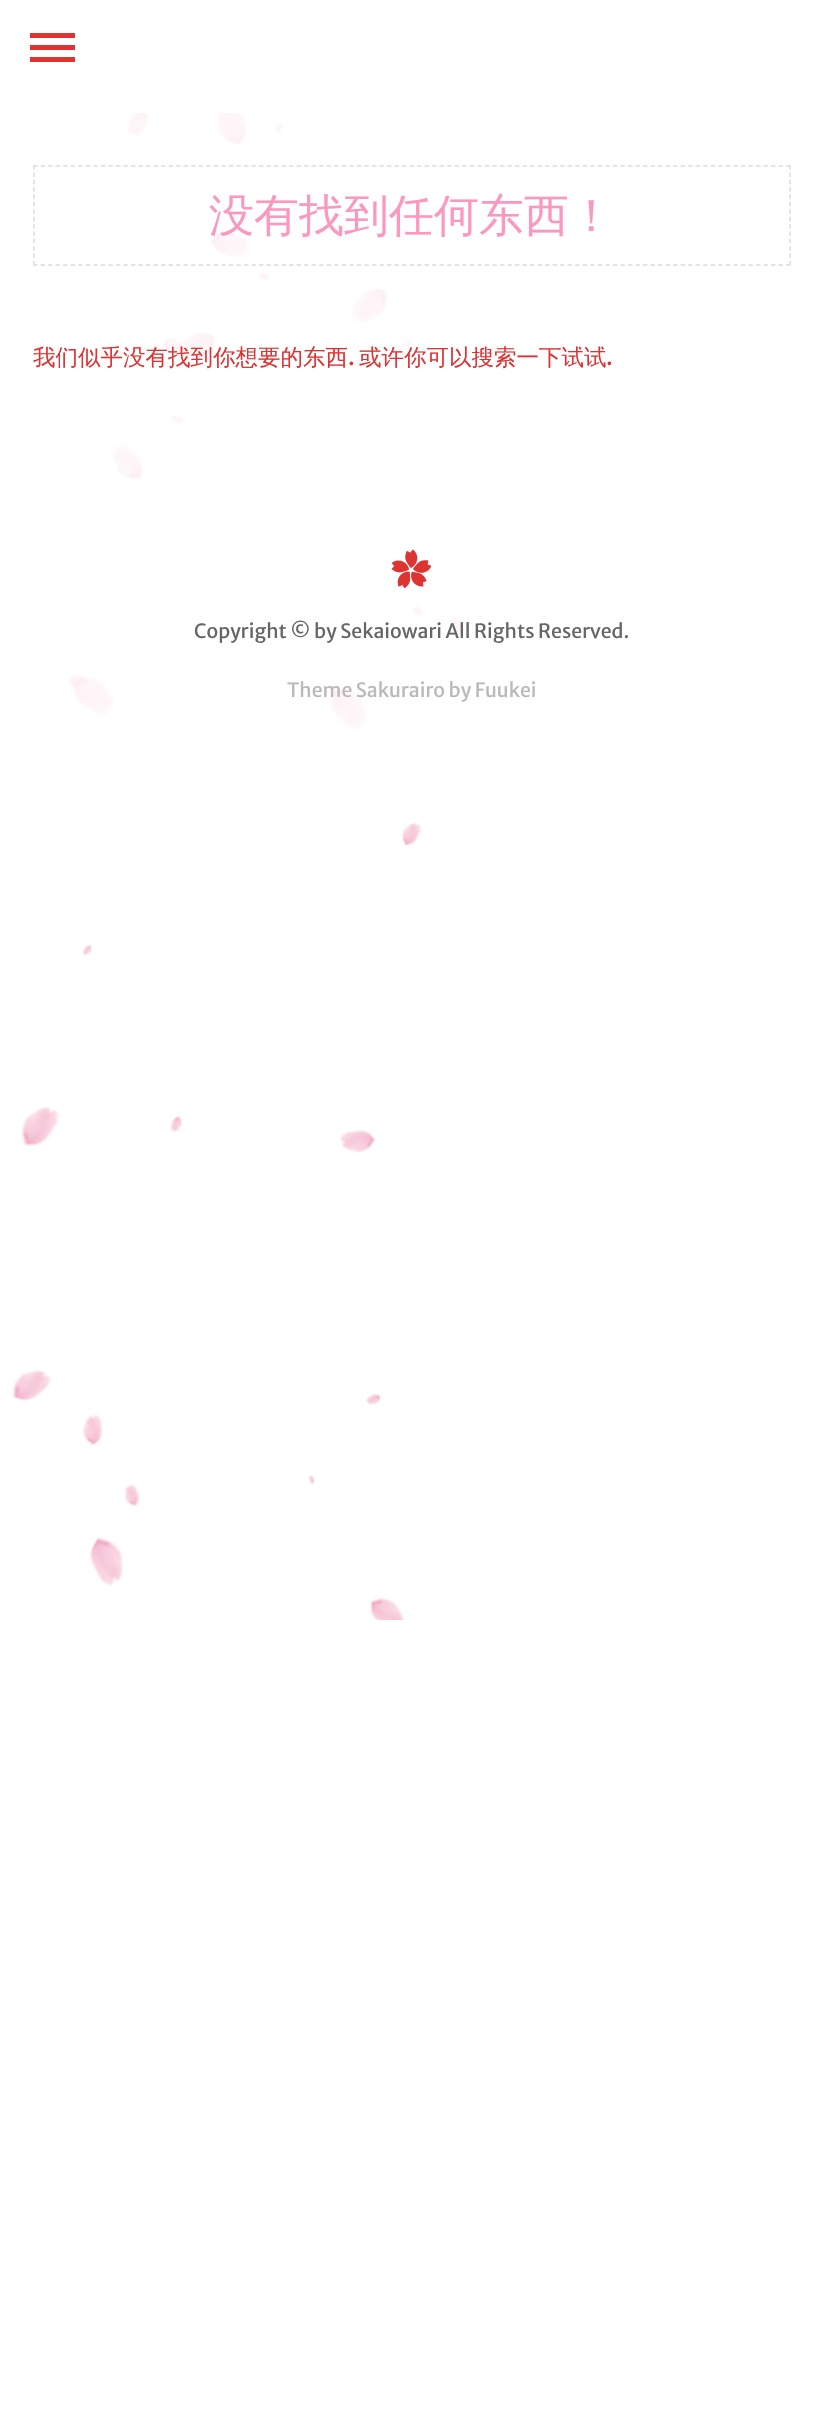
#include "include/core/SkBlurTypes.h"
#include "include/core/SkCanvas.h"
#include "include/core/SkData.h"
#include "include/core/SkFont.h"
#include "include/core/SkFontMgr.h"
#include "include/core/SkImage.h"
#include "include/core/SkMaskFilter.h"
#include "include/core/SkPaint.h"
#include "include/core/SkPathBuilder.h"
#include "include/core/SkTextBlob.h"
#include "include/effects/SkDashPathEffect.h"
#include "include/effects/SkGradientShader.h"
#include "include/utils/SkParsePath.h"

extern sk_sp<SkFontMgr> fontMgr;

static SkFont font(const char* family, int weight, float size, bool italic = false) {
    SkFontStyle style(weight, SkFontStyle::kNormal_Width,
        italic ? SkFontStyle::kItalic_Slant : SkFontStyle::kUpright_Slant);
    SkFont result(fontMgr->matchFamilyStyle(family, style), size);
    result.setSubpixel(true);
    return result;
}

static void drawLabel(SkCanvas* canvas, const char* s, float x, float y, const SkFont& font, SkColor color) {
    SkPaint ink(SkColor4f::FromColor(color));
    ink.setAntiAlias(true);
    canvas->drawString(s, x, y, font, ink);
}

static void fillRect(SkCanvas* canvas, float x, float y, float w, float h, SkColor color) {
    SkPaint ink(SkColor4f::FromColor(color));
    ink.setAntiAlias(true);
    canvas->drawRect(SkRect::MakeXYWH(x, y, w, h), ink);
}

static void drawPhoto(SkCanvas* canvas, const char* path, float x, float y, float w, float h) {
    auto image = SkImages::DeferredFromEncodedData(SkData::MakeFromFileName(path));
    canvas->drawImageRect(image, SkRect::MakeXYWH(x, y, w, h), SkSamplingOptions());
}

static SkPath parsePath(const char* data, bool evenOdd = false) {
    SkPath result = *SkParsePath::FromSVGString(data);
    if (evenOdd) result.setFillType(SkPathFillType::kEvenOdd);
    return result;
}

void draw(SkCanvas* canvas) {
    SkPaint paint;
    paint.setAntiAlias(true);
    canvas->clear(0xFFFFFFFF);
    drawPhoto(canvas, "assets/img1.png", 12, 113, 452, 1507);
    fillRect(canvas, 30, 45, 45, 5, 0xFFDD3333);
    fillRect(canvas, 30, 33, 45, 5, 0xFFDD3333);
    fillRect(canvas, 30, 57, 45, 5, 0xFFDD3333);
    fillRect(canvas, 112, 113, 301, 367, 0xCCFFFFFF);
    paint.setStroke(true);
    paint.setStrokeWidth(1.5f);
    paint.setColor(0xFFDDDDDD);
    paint.setPathEffect(SkDashPathEffect::Make({{4.5f, 3.03f}}, 0));
    canvas->drawPath(parsePath("M33 166H790.5"), paint);
    paint.setPathEffect(nullptr);
    paint.setPathEffect(SkDashPathEffect::Make({{4.5f, 2.88f}}, 0));
    canvas->drawPath(parsePath("M790 165V265.5"), paint);
    paint.setPathEffect(nullptr);
    paint.setPathEffect(SkDashPathEffect::Make({{4.5f, 3.03f}}, 0));
    canvas->drawPath(parsePath("M33 265H790.5"), paint);
    paint.setPathEffect(nullptr);
    paint.setPathEffect(SkDashPathEffect::Make({{4.5f, 2.88f}}, 0));
    canvas->drawPath(parsePath("M34 165V265.5"), paint);
    paint.setPathEffect(nullptr);
    SkFont font1 = font("WenQuanYi Zen Hei", 500, 45);
    drawLabel(canvas, "没有找到任何东西！", 209, 231, font1, 0xFFFB98C0);
    SkFont font2 = font("WenQuanYi Zen Hei", 500, 22.5f);
    drawLabel(canvas, "我们似乎没有找到你想要的东西", 33, 365, font2, 0xFFDD3333);
    SkFont font3 = font("Merriweather Sans", 400, 22.5f);
    drawLabel(canvas, ".", 348, 365, font3, 0xFFDD3333);
    drawLabel(canvas, "或许你可以搜索一下试试", 359, 365, font2, 0xFFDD3333);
    drawLabel(canvas, ".", 606, 365, font3, 0xFFDD3333);
    fillRect(canvas, 67, 606, 397, 125, 0xCCFFFFFF);
    drawPhoto(canvas, "assets/img2.png", 391, 549, 41, 40);
    SkFont font4 = font("Merriweather Sans", 400, 19.5f);
    drawLabel(canvas, "Copyright © by Sekaiowari All Rights Reserved.", 194, 638, font4, 0xFF666666);
    drawLabel(canvas, "Theme Sakurairo by Fuukei", 287, 697, font4, 0xFFB9B9B9);
}
